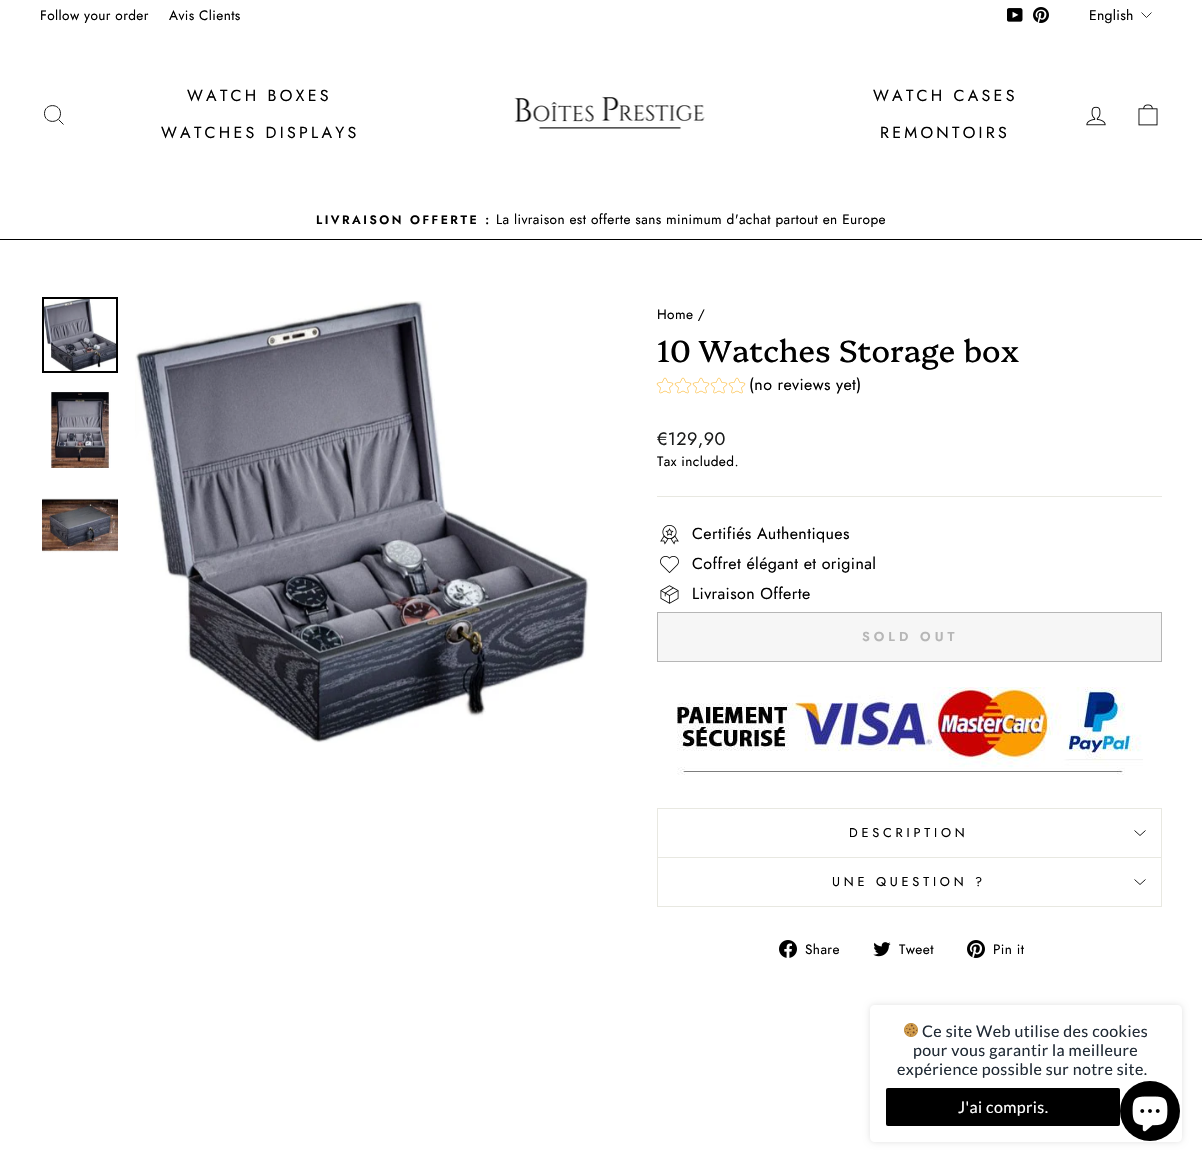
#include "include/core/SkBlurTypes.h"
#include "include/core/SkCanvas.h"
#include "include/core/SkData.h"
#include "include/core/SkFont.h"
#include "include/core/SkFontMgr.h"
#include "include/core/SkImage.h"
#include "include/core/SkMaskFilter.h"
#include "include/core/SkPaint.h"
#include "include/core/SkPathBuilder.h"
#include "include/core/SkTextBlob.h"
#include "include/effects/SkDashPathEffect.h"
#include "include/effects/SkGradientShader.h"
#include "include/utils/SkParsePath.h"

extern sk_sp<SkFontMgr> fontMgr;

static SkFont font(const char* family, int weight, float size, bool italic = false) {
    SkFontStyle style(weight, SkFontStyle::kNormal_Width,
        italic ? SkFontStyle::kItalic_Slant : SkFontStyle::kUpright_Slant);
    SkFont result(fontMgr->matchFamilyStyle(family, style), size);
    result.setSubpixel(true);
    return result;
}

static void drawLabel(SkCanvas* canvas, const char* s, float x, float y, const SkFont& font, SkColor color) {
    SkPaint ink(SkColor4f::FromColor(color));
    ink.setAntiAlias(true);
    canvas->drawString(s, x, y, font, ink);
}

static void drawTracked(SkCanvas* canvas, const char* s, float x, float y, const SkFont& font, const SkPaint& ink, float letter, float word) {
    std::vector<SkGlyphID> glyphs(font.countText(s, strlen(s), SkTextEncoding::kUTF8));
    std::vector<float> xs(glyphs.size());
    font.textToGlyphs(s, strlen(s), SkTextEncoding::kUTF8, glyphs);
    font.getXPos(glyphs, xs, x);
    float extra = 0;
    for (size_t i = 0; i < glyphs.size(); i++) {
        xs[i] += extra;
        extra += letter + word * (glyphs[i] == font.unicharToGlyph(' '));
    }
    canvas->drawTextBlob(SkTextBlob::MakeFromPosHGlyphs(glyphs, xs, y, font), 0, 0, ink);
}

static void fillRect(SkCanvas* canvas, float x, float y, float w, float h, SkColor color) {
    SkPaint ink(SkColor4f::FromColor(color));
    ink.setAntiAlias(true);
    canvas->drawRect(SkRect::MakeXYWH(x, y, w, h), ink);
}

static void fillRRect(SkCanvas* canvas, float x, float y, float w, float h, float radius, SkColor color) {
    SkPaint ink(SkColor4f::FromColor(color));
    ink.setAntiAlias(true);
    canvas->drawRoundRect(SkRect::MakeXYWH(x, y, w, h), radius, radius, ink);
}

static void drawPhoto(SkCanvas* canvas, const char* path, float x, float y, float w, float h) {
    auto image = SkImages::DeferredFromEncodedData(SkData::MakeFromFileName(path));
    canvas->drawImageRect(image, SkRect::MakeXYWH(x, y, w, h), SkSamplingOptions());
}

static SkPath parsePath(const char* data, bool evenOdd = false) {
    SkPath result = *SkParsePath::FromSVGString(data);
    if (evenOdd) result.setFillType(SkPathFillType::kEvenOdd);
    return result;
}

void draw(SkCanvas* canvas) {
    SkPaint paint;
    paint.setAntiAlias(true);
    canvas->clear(0xFFFFFFFF);
    SkFont font1 = font("Jost", 400, 13.6f);
    paint.setColor(0xFF000000);
    drawTracked(canvas, "Follow your order", 40, 20, font1, paint, 0.4f, 0);
    drawTracked(canvas, "Avis Clients", 169, 20, font1, paint, 0.4f, 0);
    drawPhoto(canvas, "assets/img1.png", 1007, 8, 16, 14);
    drawPhoto(canvas, "assets/img2.png", 1033, 7, 16, 16);
    SkFont font2 = font("Jost", 400, 14);
    drawTracked(canvas, "English", 1089, 20, font2, paint, 0.25f, 0);
    paint.setStroke(true);
    paint.setStrokeWidth(0.8f);
    canvas->drawPath(parsePath("M1141.5 12.5L1146.5 17.5L1151.5 12.5"), paint);
    paint.setStrokeWidth(0.9f);
    canvas->drawPath(parsePath("M60.5 113.5C60.5 124 44.5 124 44.5 113.5C44.5 103 60.5 103 60.5 113.5ZM63.5 124.5L58.5 119.5"), paint);
    SkFont font3 = font("Jost", 400, 16);
    paint.setStroke(false);
    drawTracked(canvas, "WATCH BOXES", 187, 101, font3, paint, 3.25f, 0);
    drawTracked(canvas, "WATCHES DISPLAYS", 161, 138, font3, paint, 3.25f, 0);
    drawPhoto(canvas, "assets/img3.png", 514, 96, 191, 33);
    drawTracked(canvas, "WATCH CASES", 873, 101, font3, paint, 3.25f, 0);
    drawTracked(canvas, "REMONTOIRS", 880, 138, font3, paint, 3.25f, 0);
    drawPhoto(canvas, "assets/img4.png", 1086, 106, 20, 20);
    drawPhoto(canvas, "assets/img5.png", 1138, 104, 20, 22);
    fillRect(canvas, 0, 239, 1202, 1, 0xFF000000);
    SkFont font4 = font("Jost", 600, 12.25f);
    drawTracked(canvas, "LIVRAISON OFFERTE :", 316, 224, font4, paint, 2.5f, 0);
    drawTracked(canvas, "La livraison est offerte sans minimum d'achat partout en Europe", 496, 224, font1, paint, 0.4f, 0);
    drawPhoto(canvas, "assets/img6.png", 44, 299, 72, 72);
    paint.setStroke(true);
    paint.setStrokeWidth(2);
    canvas->drawRect(SkRect::MakeXYWH(43, 298, 74, 74), paint);
    drawPhoto(canvas, "assets/img7.png", 50, 392, 61, 76);
    drawPhoto(canvas, "assets/img8.png", 42, 498, 76, 55);
    drawPhoto(canvas, "assets/img9.png", 135, 301, 455, 442);
    paint.setStroke(false);
    drawTracked(canvas, "Home /", 657, 319, font1, paint, 0.4f, 0);
    SkFont font5 = font("Platypi", 400, 30.6f);
    drawLabel(canvas, "10 Watches Storage box", 657, 362, font5, 0xFF000000);
    drawPhoto(canvas, "assets/img10.png", 656, 377, 18, 17);
    drawPhoto(canvas, "assets/img10.png", 674, 377, 18, 17);
    drawPhoto(canvas, "assets/img10.png", 692, 377, 18, 17);
    drawPhoto(canvas, "assets/img10.png", 710, 377, 18, 17);
    drawPhoto(canvas, "assets/img10.png", 728, 377, 18, 17);
    drawTracked(canvas, "(no reviews yet)", 749, 390, font3, paint, 0.4f, 0);
    SkFont font6 = font("Jost", 400, 18);
    paint.setColor(0xFF1C1D1D);
    drawTracked(canvas, "€129,90", 657, 445, font6, paint, 0.4f, 0);
    paint.setColor(0xFF000000);
    drawTracked(canvas, "Tax included.", 657, 466, font1, paint, 0.4f, 0);
    fillRect(canvas, 657, 496, 505, 1, 0xFFE8E8E1);
    drawPhoto(canvas, "assets/img11.png", 660, 525, 19, 20);
    drawTracked(canvas, "Certifiés Authentiques", 692, 539, font3, paint, 0.4f, 0);
    drawPhoto(canvas, "assets/img12.png", 660, 556, 19, 18);
    drawTracked(canvas, "Coffret élégant et original", 692, 569, font3, paint, 0.4f, 0);
    drawPhoto(canvas, "assets/img13.png", 660, 585, 19, 19);
    drawTracked(canvas, "Livraison Offerte", 692, 599, font3, paint, 0.4f, 0);
    paint.setColor(0xFFF6F6F6);
    canvas->drawRect(SkRect::MakeXYWH(657.5f, 612.5f, 504, 49), paint);
    paint.setStroke(true);
    paint.setStrokeWidth(1);
    paint.setColor(0xFFB6B6B6);
    canvas->drawRect(SkRect::MakeXYWH(657.5f, 612.5f, 504, 49), paint);
    SkFont font7 = font("Jost", 600, 13);
    paint.setStroke(false);
    drawTracked(canvas, "SOLD OUT", 862, 641, font7, paint, 4, 0);
    drawPhoto(canvas, "assets/img14.png", 677, 687, 466, 88);
    fillRect(canvas, 657, 857, 505, 1, 0xFFE8E8E1);
    fillRect(canvas, 657, 808, 505, 1, 0xFFE8E8E1);
    fillRect(canvas, 1161, 808, 1, 49, 0xFFE8E8E1);
    fillRect(canvas, 657, 808, 1, 49, 0xFFE8E8E1);
    SkFont font8 = font("Jost", 400, 12.75f);
    paint.setColor(0xFF000000);
    drawTracked(canvas, "DESCRIPTION", 849, 837, font8, paint, 3.8f, 0);
    paint.setStroke(true);
    paint.setStrokeWidth(0.9f);
    canvas->drawPath(parsePath("M1134.5 830.5L1140 835.5L1145.5 830.5"), paint);
    fillRect(canvas, 657, 906, 505, 1, 0xFFE8E8E1);
    fillRect(canvas, 1161, 858, 1, 48, 0xFFE8E8E1);
    fillRect(canvas, 657, 858, 1, 48, 0xFFE8E8E1);
    paint.setStroke(false);
    drawTracked(canvas, "UNE QUESTION ?", 832, 886, font8, paint, 3.8f, 0);
    paint.setStroke(true);
    canvas->drawPath(parsePath("M1134.5 879.5L1140 884.5L1145.5 879.5"), paint);
    drawPhoto(canvas, "assets/img15.png", 779, 940, 18, 18);
    paint.setStroke(false);
    drawTracked(canvas, "Share", 805, 954, font1, paint, 0.4f, 0);
    drawPhoto(canvas, "assets/img16.png", 873, 942, 18, 15);
    drawTracked(canvas, "Tweet", 899, 954, font1, paint, 0.4f, 0);
    drawPhoto(canvas, "assets/img17.png", 967, 940, 18, 18);
    drawTracked(canvas, "Pin it", 993, 954, font1, paint, 0.4f, 0);
    canvas->save();
    canvas->clipPath(parsePath("M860 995H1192V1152H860ZM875 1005H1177C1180 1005 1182 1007 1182 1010V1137C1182 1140 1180 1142 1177 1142H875C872 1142 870 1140 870 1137V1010C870 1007 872 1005 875 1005Z", true), true);
    paint.setColor(0x1F000000);
    paint.setMaskFilter(SkMaskFilter::MakeBlur(kNormal_SkBlurStyle, 3));
    canvas->drawRoundRect(SkRect::MakeXYWH(870, 1005, 312, 137), 5, 5, paint);
    paint.setMaskFilter(nullptr);
    canvas->restore();
    drawPhoto(canvas, "assets/img18.png", 904, 1023, 14, 14);
    SkFont font9 = font("Lato", 400, 16);
    paint.setColor(0xFF212B36);
    drawTracked(canvas, "Ce site Web utilise des cookies", 922, 1037, font9, paint, 0.4f, 0);
    drawTracked(canvas, "pour vous garantir la meilleure", 913, 1056, font9, paint, 0.4f, 0);
    drawTracked(canvas, "expérience possible sur notre site.", 897, 1075, font9, paint, 0.4f, 0);
    fillRRect(canvas, 886, 1088, 234, 38, 2, 0xFF000000);
    paint.setColor(0xFFFFFFFF);
    drawTracked(canvas, "J'ai compris.", 958, 1113, font9, paint, 0.4f, 0);
    paint.setColor(0xFF000000);
    canvas->drawCircle(1150, 1111, 30, paint);
    drawPhoto(canvas, "assets/img19.png", 1132, 1096, 36, 36);
}
